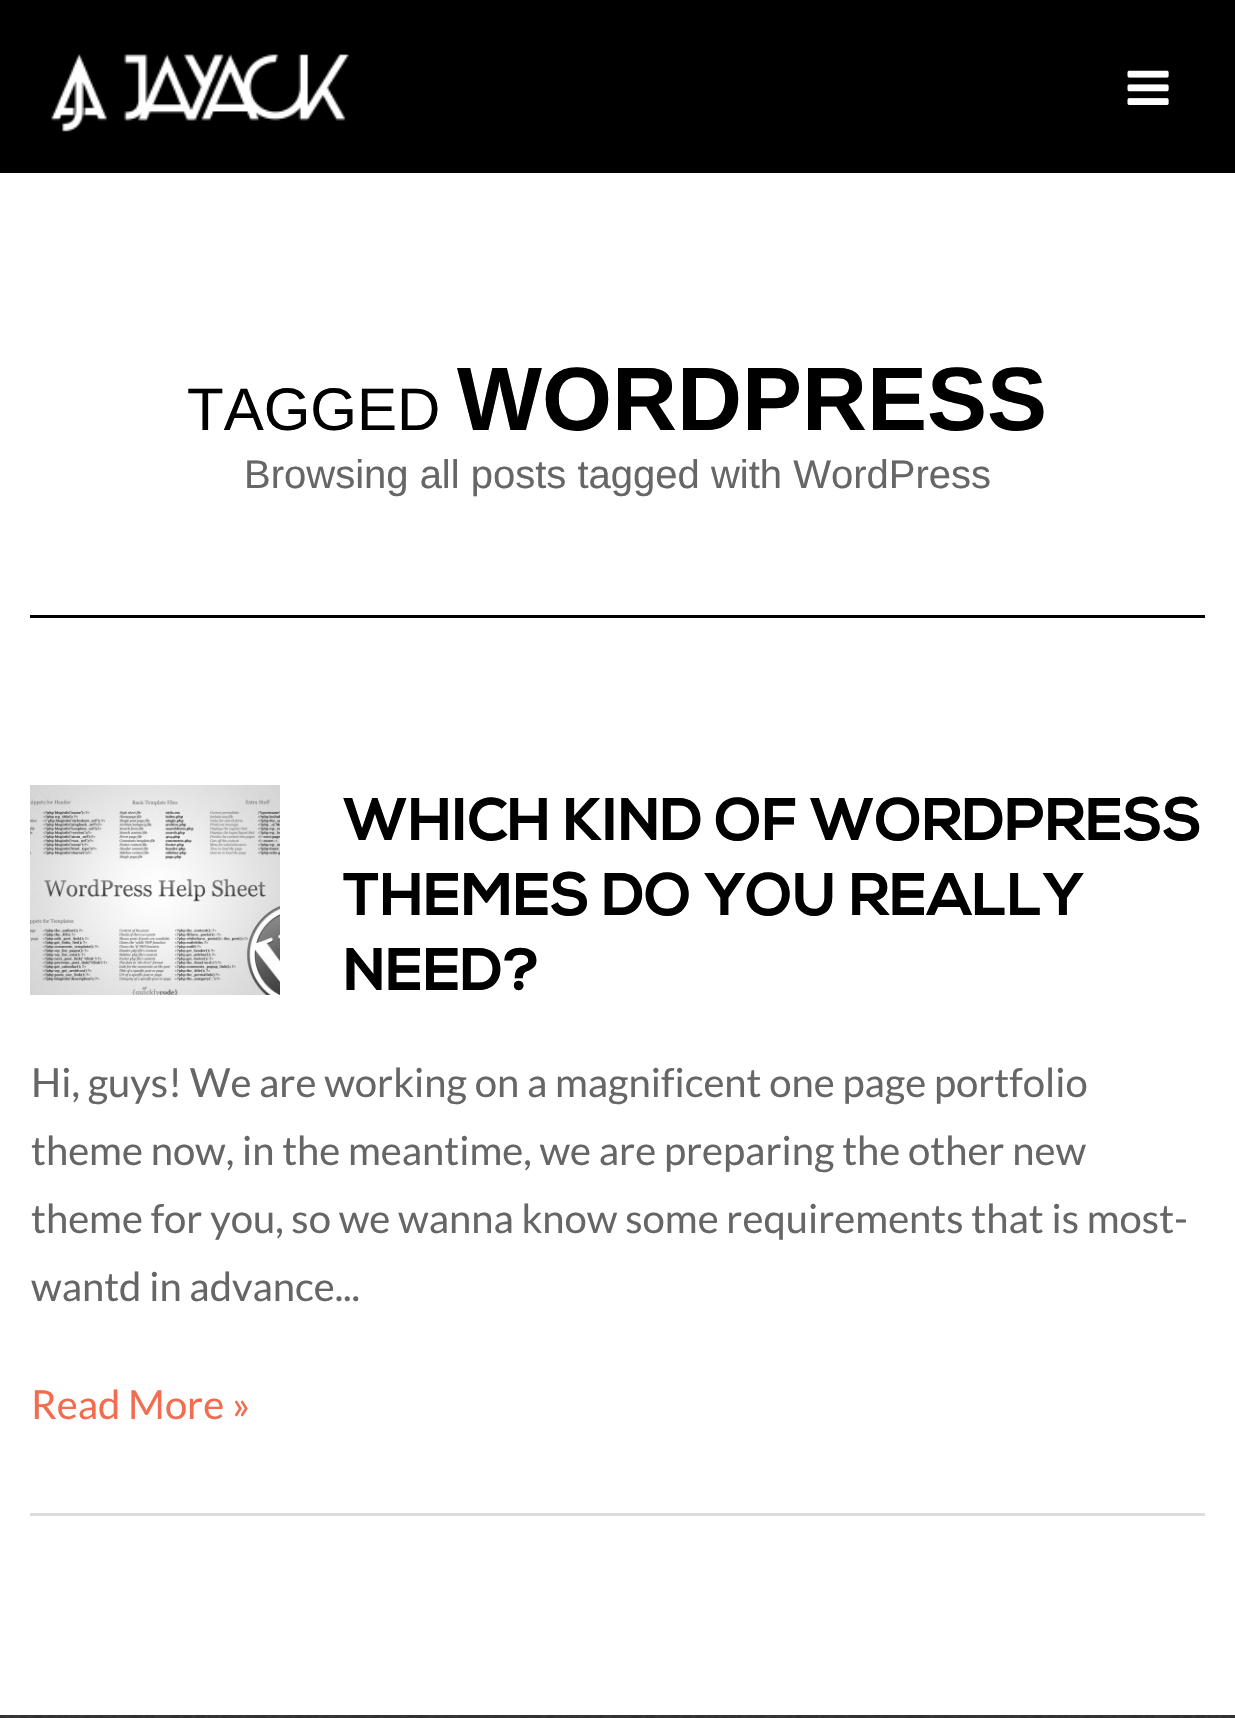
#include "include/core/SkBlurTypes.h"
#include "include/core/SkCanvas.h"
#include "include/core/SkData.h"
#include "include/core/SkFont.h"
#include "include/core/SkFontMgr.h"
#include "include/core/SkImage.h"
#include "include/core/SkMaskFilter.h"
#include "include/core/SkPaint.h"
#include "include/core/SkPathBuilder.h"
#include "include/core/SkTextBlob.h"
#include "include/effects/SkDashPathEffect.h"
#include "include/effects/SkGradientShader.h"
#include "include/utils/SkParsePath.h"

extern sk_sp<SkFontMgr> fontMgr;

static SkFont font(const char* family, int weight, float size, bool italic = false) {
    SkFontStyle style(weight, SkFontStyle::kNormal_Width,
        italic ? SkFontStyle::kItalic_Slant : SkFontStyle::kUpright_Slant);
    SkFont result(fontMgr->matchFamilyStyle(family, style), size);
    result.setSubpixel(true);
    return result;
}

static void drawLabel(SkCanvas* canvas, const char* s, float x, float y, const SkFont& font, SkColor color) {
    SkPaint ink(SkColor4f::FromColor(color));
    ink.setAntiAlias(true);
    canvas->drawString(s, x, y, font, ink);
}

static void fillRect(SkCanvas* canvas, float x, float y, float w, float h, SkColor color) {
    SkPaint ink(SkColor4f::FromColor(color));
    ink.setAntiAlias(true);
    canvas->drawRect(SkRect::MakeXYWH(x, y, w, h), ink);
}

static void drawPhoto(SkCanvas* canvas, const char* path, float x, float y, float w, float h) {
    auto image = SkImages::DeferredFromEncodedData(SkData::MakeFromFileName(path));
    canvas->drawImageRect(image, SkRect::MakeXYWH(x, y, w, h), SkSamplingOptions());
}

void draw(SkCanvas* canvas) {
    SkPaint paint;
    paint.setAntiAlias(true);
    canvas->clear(0xFFFFFFFF);
    fillRect(canvas, 0, 0, 1235, 173, 0xFF000000);
    drawPhoto(canvas, "assets/img1.png", 51, 54, 298, 78);
    drawPhoto(canvas, "assets/img2.png", 1127, 70, 42, 35);
    SkFont font1 = font("Liberation Sans", 400, 60);
    drawLabel(canvas, "TAGGED", 187, 430, font1, 0xFF000000);
    SkFont font2 = font("Liberation Sans", 700, 90);
    drawLabel(canvas, "WORDPRESS", 457, 430, font2, 0xFF000000);
    SkFont font3 = font("Liberation Sans", 400, 40);
    drawLabel(canvas, "Browsing all posts tagged with WordPress", 244, 488, font3, 0xFF666666);
    fillRect(canvas, 30, 615, 1175, 3, 0xFF000000);
    fillRect(canvas, 30, 1513, 1175, 3, 0xFFDCDCDC);
    drawPhoto(canvas, "assets/img3.png", 30, 785, 250, 210);
    SkFont font4 = font("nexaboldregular", 700, 60);
    drawLabel(canvas, "WHICH KIND OF WORDPRESS", 343, 840, font4, 0xFF000000);
    drawLabel(canvas, "THEMES DO YOU REALLY", 343, 915, font4, 0xFF000000);
    drawLabel(canvas, "NEED?", 343, 990, font4, 0xFF000000);
    SkFont font5 = font("Lato", 400, 40);
    drawLabel(canvas, "Hi, guys! We are working on a magnificent one page portfolio", 31, 1097, font5, 0xFF666666);
    drawLabel(canvas, "theme now, in the meantime, we are preparing the other new", 31, 1165, font5, 0xFF666666);
    drawLabel(canvas, "theme for you, so we wanna know some requirements that is most-", 31, 1233, font5, 0xFF666666);
    drawLabel(canvas, "wantd in advance...", 31, 1301, font5, 0xFF666666);
    drawLabel(canvas, "Read More »", 31, 1419, font5, 0xFFF26C4F);
    fillRect(canvas, 0, 1715, 1235, 3, 0xFF313131);
    drawPhoto(canvas, "assets/img4.png", 5, 1715, 1225, 3);
}
